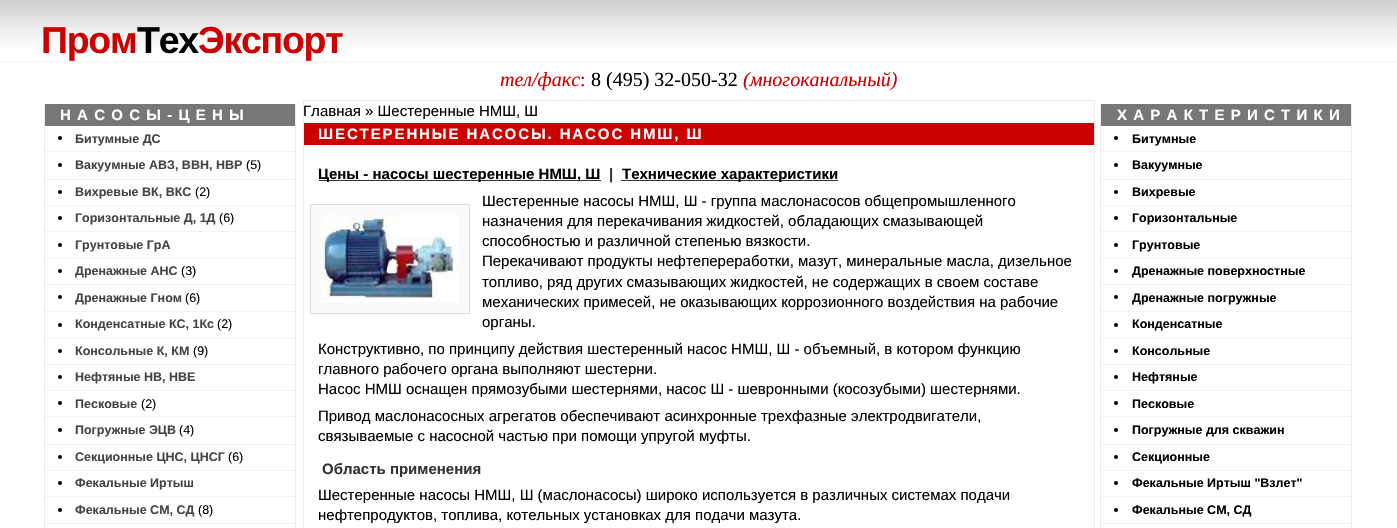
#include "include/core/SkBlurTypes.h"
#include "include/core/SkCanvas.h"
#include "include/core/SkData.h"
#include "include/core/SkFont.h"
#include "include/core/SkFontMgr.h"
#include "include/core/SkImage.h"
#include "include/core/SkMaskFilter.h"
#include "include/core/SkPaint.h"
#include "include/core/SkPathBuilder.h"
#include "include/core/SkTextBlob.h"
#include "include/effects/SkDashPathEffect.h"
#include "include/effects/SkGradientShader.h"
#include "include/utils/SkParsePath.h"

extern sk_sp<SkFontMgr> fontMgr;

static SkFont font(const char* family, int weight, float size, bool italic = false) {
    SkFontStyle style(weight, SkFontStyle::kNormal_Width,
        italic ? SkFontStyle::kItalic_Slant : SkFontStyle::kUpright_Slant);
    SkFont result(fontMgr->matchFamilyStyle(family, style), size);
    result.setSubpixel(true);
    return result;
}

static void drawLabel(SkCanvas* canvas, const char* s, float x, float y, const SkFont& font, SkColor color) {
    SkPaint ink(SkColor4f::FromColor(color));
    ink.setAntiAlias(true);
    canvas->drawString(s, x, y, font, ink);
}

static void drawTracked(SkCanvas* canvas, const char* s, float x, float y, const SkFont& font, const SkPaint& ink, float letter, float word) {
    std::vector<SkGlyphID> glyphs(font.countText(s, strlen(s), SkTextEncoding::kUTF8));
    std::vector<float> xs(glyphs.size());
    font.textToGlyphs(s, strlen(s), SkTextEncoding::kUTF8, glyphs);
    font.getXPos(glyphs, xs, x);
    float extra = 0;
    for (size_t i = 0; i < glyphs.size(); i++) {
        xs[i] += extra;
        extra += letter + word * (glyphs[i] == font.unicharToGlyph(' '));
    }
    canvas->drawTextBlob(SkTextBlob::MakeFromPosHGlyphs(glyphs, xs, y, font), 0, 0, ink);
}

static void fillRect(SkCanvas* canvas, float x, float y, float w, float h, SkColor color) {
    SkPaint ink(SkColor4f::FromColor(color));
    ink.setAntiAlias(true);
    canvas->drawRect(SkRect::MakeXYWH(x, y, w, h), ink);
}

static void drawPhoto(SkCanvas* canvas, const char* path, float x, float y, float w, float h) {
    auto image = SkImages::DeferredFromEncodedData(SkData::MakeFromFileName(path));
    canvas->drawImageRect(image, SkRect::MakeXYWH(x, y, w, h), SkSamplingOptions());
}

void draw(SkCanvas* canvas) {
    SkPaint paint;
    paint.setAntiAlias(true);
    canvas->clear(0xFFFFFFFF);
    drawPhoto(canvas, "assets/img1.png", 0, 0, 1397, 63);
    SkFont font1 = font("Liberation Sans", 700, 37.5f);
    paint.setColor(0xFFCC0000);
    drawTracked(canvas, "Пром", 41, 53, font1, paint, -1.25f, 0);
    paint.setColor(0xFF000000);
    drawTracked(canvas, "Тех", 137, 53, font1, paint, -1.25f, 0);
    paint.setColor(0xFFCC0000);
    drawTracked(canvas, "Экспорт", 198, 53, font1, paint, -1.25f, 0);
    SkFont font2 = font("Liberation Serif", 400, 20, true);
    drawLabel(canvas, "тел/факс", 500, 86, font2, 0xFFCC0000);
    SkFont font3 = font("Liberation Serif", 400, 20);
    drawLabel(canvas, ":", 580, 86, font3, 0xFFCC0000);
    drawLabel(canvas, "8 (495) 32-050-32", 591, 86, font3, 0xFF000000);
    drawLabel(canvas, "(многоканальный)", 743, 86, font2, 0xFFCC0000);
    fillRect(canvas, 295, 104, 1, 424, 0xFFEBEBEB);
    fillRect(canvas, 44, 104, 1, 424, 0xFFEBEBEB);
    fillRect(canvas, 45, 104, 250, 22, 0xFF777777);
    SkFont font4 = font("Liberation Sans", 700, 15);
    paint.setColor(0xFFFFFFFF);
    drawTracked(canvas, "НАСОСЫ-ЦЕНЫ", 60, 120, font4, paint, 6.25f, 0);
    fillRect(canvas, 45, 151, 250, 1, 0xFFF2F2F2);
    paint.setColor(0xFF000000);
    canvas->drawCircle(60, 138, 2, paint);
    SkFont font5 = font("Liberation Sans", 700, 12.5f);
    drawLabel(canvas, "Битумные ДС", 75, 143, font5, 0xFF444444);
    fillRect(canvas, 45, 179, 250, 1, 0xFFF2F2F2);
    canvas->drawCircle(60, 165, 2, paint);
    drawLabel(canvas, "Вакуумные АВЗ, ВВН, НВР", 75, 169, font5, 0xFF444444);
    SkFont font6 = font("Liberation Sans", 400, 12.5f);
    drawLabel(canvas, "(5)", 246, 169, font6, 0xFF000000);
    fillRect(canvas, 45, 205, 250, 1, 0xFFF2F2F2);
    canvas->drawCircle(60, 192, 2, paint);
    drawLabel(canvas, "Вихревые ВК, ВКС", 75, 196, font5, 0xFF444444);
    drawLabel(canvas, "(2)", 195, 196, font6, 0xFF000000);
    fillRect(canvas, 45, 231, 250, 1, 0xFFF2F2F2);
    canvas->drawCircle(60, 218, 2, paint);
    drawLabel(canvas, "Горизонтальные Д, 1Д", 75, 222, font5, 0xFF444444);
    drawLabel(canvas, "(6)", 219, 222, font6, 0xFF000000);
    fillRect(canvas, 45, 258, 250, 1, 0xFFF2F2F2);
    canvas->drawCircle(60, 245, 2, paint);
    drawLabel(canvas, "Грунтовые ГрА", 75, 249, font5, 0xFF444444);
    fillRect(canvas, 45, 284, 250, 1, 0xFFF2F2F2);
    canvas->drawCircle(60, 271, 2, paint);
    drawLabel(canvas, "Дренажные АНС", 75, 275, font5, 0xFF444444);
    drawLabel(canvas, "(3)", 181, 275, font6, 0xFF000000);
    fillRect(canvas, 45, 311, 250, 1, 0xFFF2F2F2);
    canvas->drawCircle(60, 297, 2, paint);
    drawLabel(canvas, "Дренажные Гном", 75, 302, font5, 0xFF444444);
    drawLabel(canvas, "(6)", 185, 302, font6, 0xFF000000);
    fillRect(canvas, 45, 338, 250, 1, 0xFFF2F2F2);
    canvas->drawCircle(60, 325, 2, paint);
    drawLabel(canvas, "Конденсатные КС, 1Кс", 75, 328, font5, 0xFF444444);
    drawLabel(canvas, "(2)", 217, 328, font6, 0xFF000000);
    fillRect(canvas, 45, 364, 250, 1, 0xFFF2F2F2);
    canvas->drawCircle(60, 351, 2, paint);
    drawLabel(canvas, "Консольные К, КМ", 75, 355, font5, 0xFF444444);
    drawLabel(canvas, "(9)", 193, 355, font6, 0xFF000000);
    fillRect(canvas, 45, 390, 250, 1, 0xFFF2F2F2);
    canvas->drawCircle(60, 377, 2, paint);
    drawLabel(canvas, "Нефтяные НВ, НВЕ", 75, 381, font5, 0xFF444444);
    fillRect(canvas, 45, 416, 250, 1, 0xFFF2F2F2);
    canvas->drawCircle(60, 403, 2, paint);
    drawLabel(canvas, "Песковые", 75, 408, font5, 0xFF444444);
    drawLabel(canvas, "(2)", 141, 408, font6, 0xFF000000);
    fillRect(canvas, 45, 444, 250, 1, 0xFFF2F2F2);
    canvas->drawCircle(60, 430, 2, paint);
    drawLabel(canvas, "Погружные ЭЦВ", 75, 434, font5, 0xFF444444);
    drawLabel(canvas, "(4)", 179, 434, font6, 0xFF000000);
    fillRect(canvas, 45, 470, 250, 1, 0xFFF2F2F2);
    canvas->drawCircle(60, 457, 2, paint);
    drawLabel(canvas, "Секционные ЦНС, ЦНСГ", 75, 461, font5, 0xFF444444);
    drawLabel(canvas, "(6)", 228, 461, font6, 0xFF000000);
    fillRect(canvas, 45, 496, 250, 1, 0xFFF2F2F2);
    canvas->drawCircle(60, 483, 2, paint);
    drawLabel(canvas, "Фекальные Иртыш", 75, 487, font5, 0xFF444444);
    fillRect(canvas, 45, 523, 250, 1, 0xFFF2F2F2);
    canvas->drawCircle(60, 510, 2, paint);
    drawLabel(canvas, "Фекальные СМ, СД", 75, 514, font5, 0xFF444444);
    drawLabel(canvas, "(8)", 198, 514, font6, 0xFF000000);
    paint.setStroke(true);
    paint.setStrokeWidth(1);
    paint.setColor(0xFFEBEBEB);
    canvas->drawRect(SkRect::MakeXYWH(303.5f, 100.5f, 791, 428), paint);
    SkFont font7 = font("Liberation Sans", 400, 15);
    drawLabel(canvas, "Главная » Шестеренные НМШ, Ш", 303, 116, font7, 0xFF000000);
    fillRect(canvas, 304, 123, 790, 22, 0xFFCC0000);
    paint.setStroke(false);
    paint.setColor(0xFFFFFFFF);
    drawTracked(canvas, "ШЕСТЕРЕННЫЕ НАСОСЫ. НАСОС НМШ, Ш", 318, 139, font4, paint, 1.9f, 0);
    fillRect(canvas, 319, 180, 282, 1, 0xFF333333);
    drawLabel(canvas, "Цены - насосы шестеренные НМШ, Ш", 318, 179, font4, 0xFF000000);
    drawLabel(canvas, "|", 609, 179, font4, 0xFF333333);
    fillRect(canvas, 621, 180, 217, 1, 0xFF333333);
    drawLabel(canvas, "Технические характеристики", 622, 179, font4, 0xFF000000);
    paint.setColor(0xFFFAFAFA);
    canvas->drawRect(SkRect::MakeXYWH(310.5f, 204.5f, 159, 109), paint);
    paint.setStroke(true);
    paint.setColor(0xFFDCDCDC);
    canvas->drawRect(SkRect::MakeXYWH(310.5f, 204.5f, 159, 109), paint);
    drawPhoto(canvas, "assets/img2.png", 321, 215, 137, 87);
    drawLabel(canvas, "Шестеренные насосы НМШ, Ш - группа маслонасосов общепромышленного", 482, 206, font7, 0xFF000000);
    drawLabel(canvas, "назначения для перекачивания жидкостей, обладающих смазывающей", 482, 226, font7, 0xFF000000);
    drawLabel(canvas, "способностью и различной степенью вязкости.", 482, 246, font7, 0xFF000000);
    drawLabel(canvas, "Перекачивают продукты нефтепереработки, мазут, минеральные масла, дизельное", 482, 266, font7, 0xFF000000);
    drawLabel(canvas, "топливо, ряд других смазывающих жидкостей, не содержащих в своем составе", 482, 287, font7, 0xFF000000);
    drawLabel(canvas, "механических примесей, не оказывающих коррозионного воздействия на рабочие", 482, 307, font7, 0xFF000000);
    drawLabel(canvas, "органы.", 482, 327, font7, 0xFF000000);
    drawLabel(canvas, "Конструктивно, по принципу действия шестеренный насос НМШ, Ш - объемный, в котором функцию", 318, 354, font7, 0xFF000000);
    drawLabel(canvas, "главного рабочего органа выполняют шестерни.", 318, 374, font7, 0xFF000000);
    drawLabel(canvas, "Насос НМШ оснащен прямозубыми шестернями, насос Ш - шевронными (косозубыми) шестернями.", 318, 394, font7, 0xFF000000);
    drawLabel(canvas, "Привод маслонасосных агрегатов обеспечивают асинхронные трехфазные электродвигатели,", 318, 421, font7, 0xFF000000);
    drawLabel(canvas, "связываемые с насосной частью при помощи упругой муфты.", 318, 441, font7, 0xFF000000);
    drawLabel(canvas, "Область применения", 322, 474, font4, 0xFF333333);
    drawLabel(canvas, "Шестеренные насосы НМШ, Ш (маслонасосы) широко используется в различных системах подачи", 318, 500, font7, 0xFF000000);
    drawLabel(canvas, "нефтепродуктов, топлива, котельных установках для подачи мазута.", 318, 520, font7, 0xFF000000);
    fillRect(canvas, 1351, 104, 1, 424, 0xFFEBEBEB);
    fillRect(canvas, 1100, 104, 1, 424, 0xFFEBEBEB);
    fillRect(canvas, 1101, 104, 250, 22, 0xFF777777);
    paint.setStroke(false);
    paint.setColor(0xFFFFFFFF);
    drawTracked(canvas, "ХАРАКТЕРИСТИКИ", 1117, 120, font4, paint, 6.25f, 0);
    fillRect(canvas, 1101, 151, 250, 1, 0xFFF2F2F2);
    paint.setColor(0xFF000000);
    canvas->drawCircle(1116, 138, 2, paint);
    drawLabel(canvas, "Битумные", 1132, 143, font5, 0xFF000000);
    fillRect(canvas, 1101, 179, 250, 1, 0xFFF2F2F2);
    canvas->drawCircle(1116, 165, 2, paint);
    drawLabel(canvas, "Вакуумные", 1132, 169, font5, 0xFF000000);
    fillRect(canvas, 1101, 205, 250, 1, 0xFFF2F2F2);
    canvas->drawCircle(1116, 192, 2, paint);
    drawLabel(canvas, "Вихревые", 1132, 196, font5, 0xFF000000);
    fillRect(canvas, 1101, 231, 250, 1, 0xFFF2F2F2);
    canvas->drawCircle(1116, 218, 2, paint);
    drawLabel(canvas, "Горизонтальные", 1132, 222, font5, 0xFF000000);
    fillRect(canvas, 1101, 258, 250, 1, 0xFFF2F2F2);
    canvas->drawCircle(1116, 245, 2, paint);
    drawLabel(canvas, "Грунтовые", 1132, 249, font5, 0xFF000000);
    fillRect(canvas, 1101, 284, 250, 1, 0xFFF2F2F2);
    canvas->drawCircle(1116, 271, 2, paint);
    drawLabel(canvas, "Дренажные поверхностные", 1132, 275, font5, 0xFF000000);
    fillRect(canvas, 1101, 311, 250, 1, 0xFFF2F2F2);
    canvas->drawCircle(1116, 297, 2, paint);
    drawLabel(canvas, "Дренажные погружные", 1132, 302, font5, 0xFF000000);
    fillRect(canvas, 1101, 338, 250, 1, 0xFFF2F2F2);
    canvas->drawCircle(1116, 325, 2, paint);
    drawLabel(canvas, "Конденсатные", 1132, 328, font5, 0xFF000000);
    fillRect(canvas, 1101, 364, 250, 1, 0xFFF2F2F2);
    canvas->drawCircle(1116, 351, 2, paint);
    drawLabel(canvas, "Консольные", 1132, 355, font5, 0xFF000000);
    fillRect(canvas, 1101, 390, 250, 1, 0xFFF2F2F2);
    canvas->drawCircle(1116, 377, 2, paint);
    drawLabel(canvas, "Нефтяные", 1132, 381, font5, 0xFF000000);
    fillRect(canvas, 1101, 416, 250, 1, 0xFFF2F2F2);
    canvas->drawCircle(1116, 403, 2, paint);
    drawLabel(canvas, "Песковые", 1132, 408, font5, 0xFF000000);
    fillRect(canvas, 1101, 444, 250, 1, 0xFFF2F2F2);
    canvas->drawCircle(1116, 430, 2, paint);
    drawLabel(canvas, "Погружные для скважин", 1132, 434, font5, 0xFF000000);
    fillRect(canvas, 1101, 470, 250, 1, 0xFFF2F2F2);
    canvas->drawCircle(1116, 457, 2, paint);
    drawLabel(canvas, "Секционные", 1132, 461, font5, 0xFF000000);
    fillRect(canvas, 1101, 496, 250, 1, 0xFFF2F2F2);
    canvas->drawCircle(1116, 483, 2, paint);
    drawLabel(canvas, "Фекальные Иртыш \"Взлет\"", 1132, 487, font5, 0xFF000000);
    fillRect(canvas, 1101, 523, 250, 1, 0xFFF2F2F2);
    canvas->drawCircle(1116, 510, 2, paint);
    drawLabel(canvas, "Фекальные СМ, СД", 1132, 514, font5, 0xFF000000);
}
